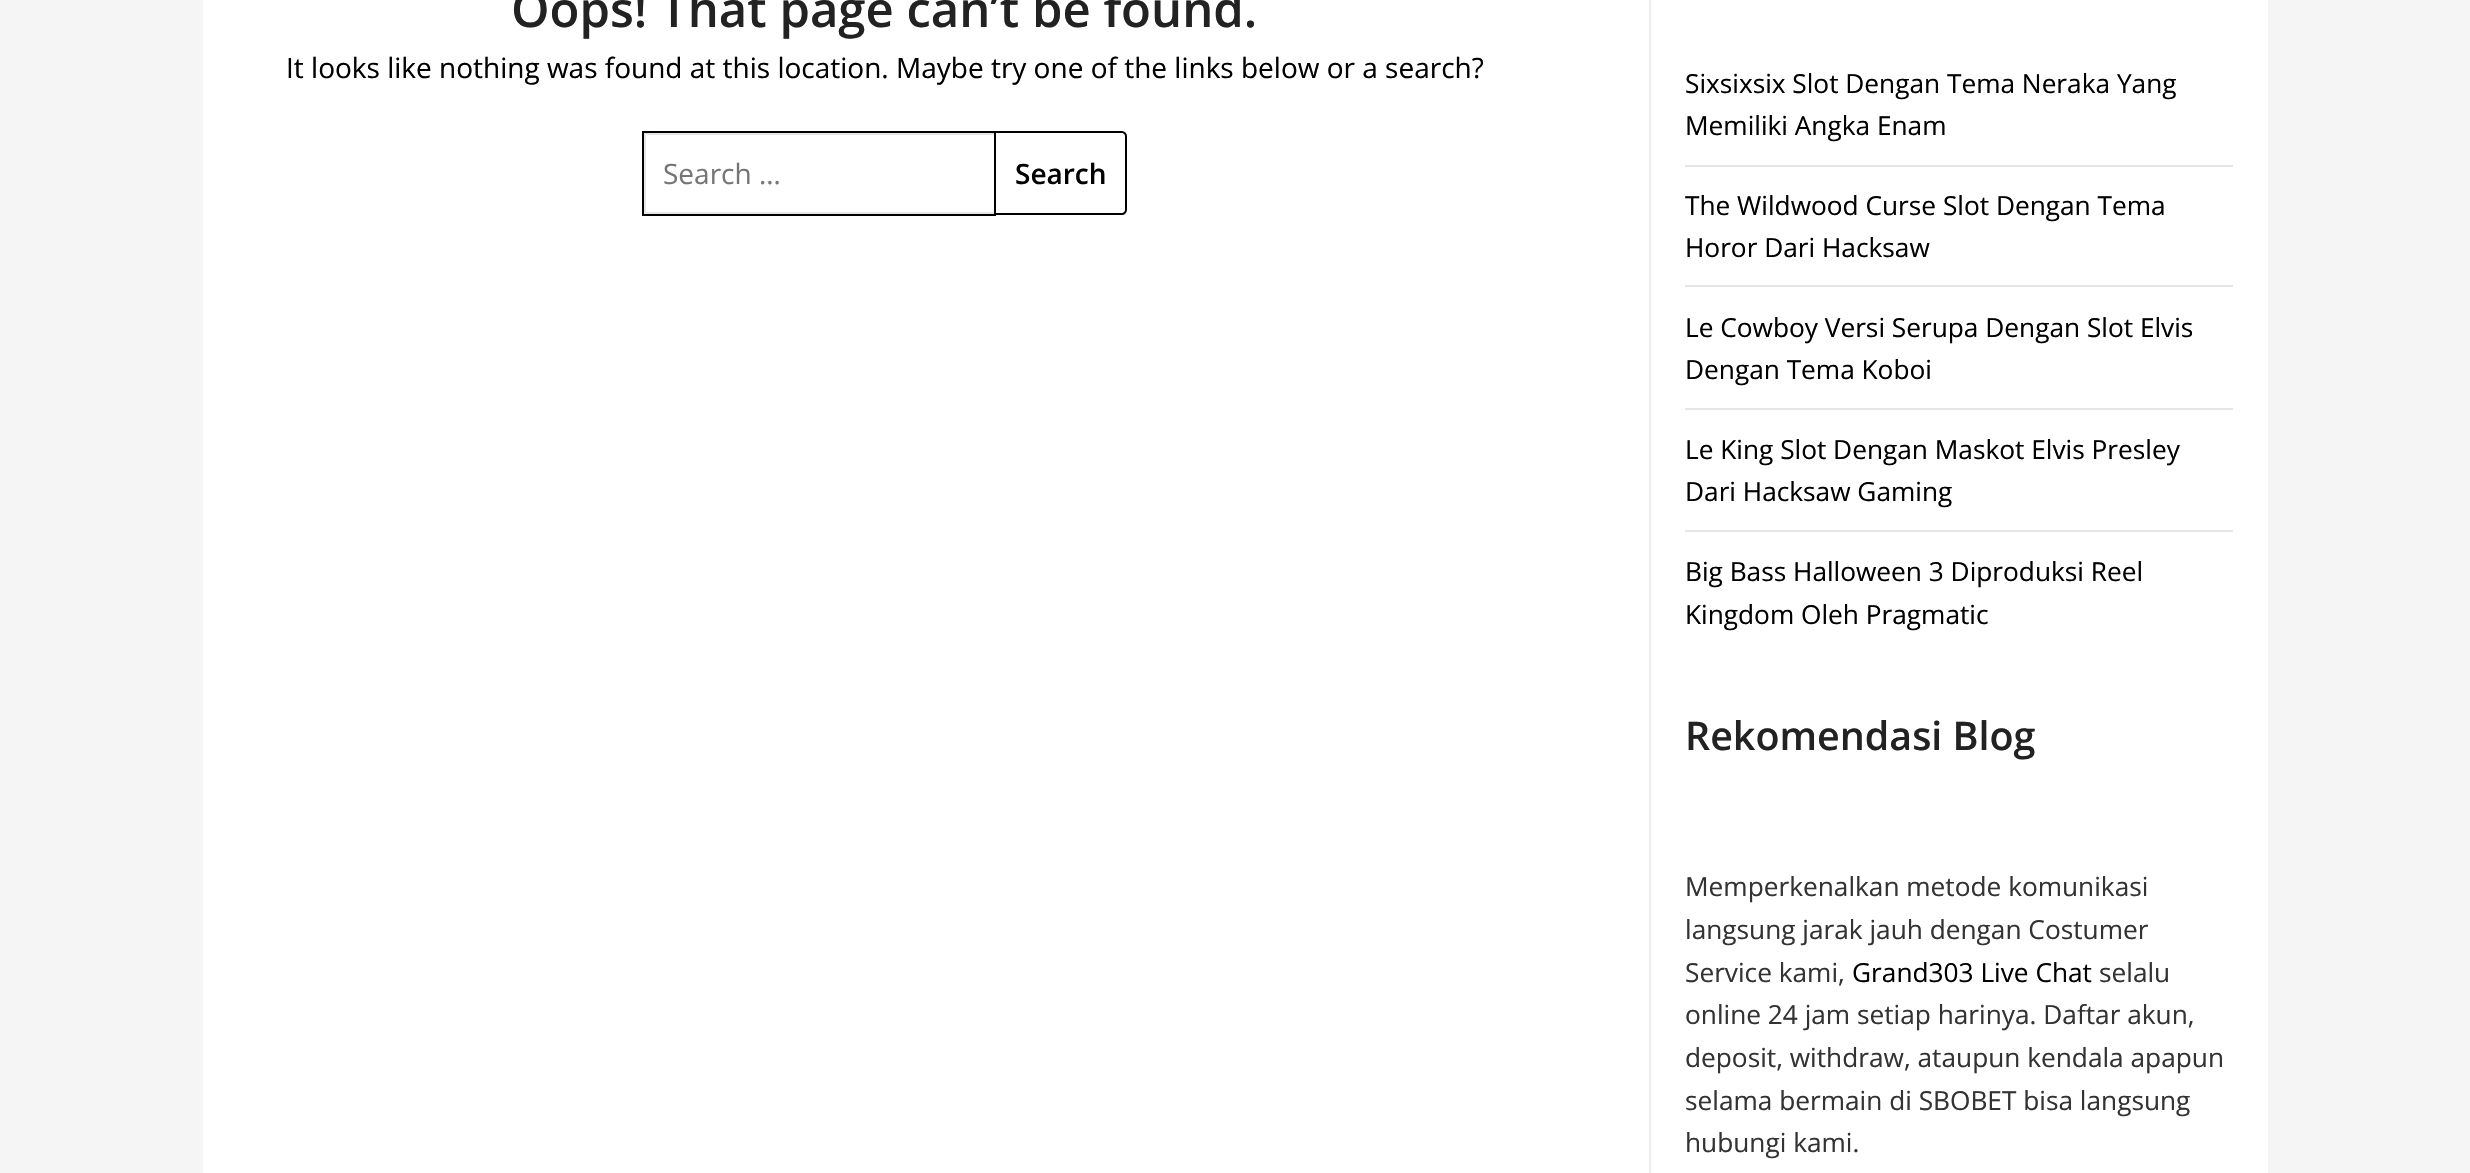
#include "include/core/SkBlurTypes.h"
#include "include/core/SkCanvas.h"
#include "include/core/SkData.h"
#include "include/core/SkFont.h"
#include "include/core/SkFontMgr.h"
#include "include/core/SkImage.h"
#include "include/core/SkMaskFilter.h"
#include "include/core/SkPaint.h"
#include "include/core/SkPathBuilder.h"
#include "include/core/SkTextBlob.h"
#include "include/effects/SkDashPathEffect.h"
#include "include/effects/SkGradientShader.h"
#include "include/utils/SkParsePath.h"

extern sk_sp<SkFontMgr> fontMgr;

static SkFont font(const char* family, int weight, float size, bool italic = false) {
    SkFontStyle style(weight, SkFontStyle::kNormal_Width,
        italic ? SkFontStyle::kItalic_Slant : SkFontStyle::kUpright_Slant);
    SkFont result(fontMgr->matchFamilyStyle(family, style), size);
    result.setSubpixel(true);
    return result;
}

static void drawLabel(SkCanvas* canvas, const char* s, float x, float y, const SkFont& font, SkColor color) {
    SkPaint ink(SkColor4f::FromColor(color));
    ink.setAntiAlias(true);
    canvas->drawString(s, x, y, font, ink);
}

static void fillRect(SkCanvas* canvas, float x, float y, float w, float h, SkColor color) {
    SkPaint ink(SkColor4f::FromColor(color));
    ink.setAntiAlias(true);
    canvas->drawRect(SkRect::MakeXYWH(x, y, w, h), ink);
}

static SkPath parsePath(const char* data, bool evenOdd = false) {
    SkPath result = *SkParsePath::FromSVGString(data);
    if (evenOdd) result.setFillType(SkPathFillType::kEvenOdd);
    return result;
}

void draw(SkCanvas* canvas) {
    SkPaint paint;
    paint.setAntiAlias(true);
    canvas->clear(0xFFF5F5F5);
    fillRect(canvas, 203, 0, 2065, 1173, 0xFFFFFFFF);
    SkFont font1 = font("Open Sans", 600, 49);
    drawLabel(canvas, "Oops! That page can’t be found.", 511, 27, font1, 0xFF222222);
    SkFont font2 = font("Open Sans", 400, 28);
    drawLabel(canvas, "It looks like nothing was found at this location. Maybe try one of the links below or a search?", 286, 78, font2, 0xFF000000);
    fillRect(canvas, 642, 131, 354, 2, 0xFF000000);
    fillRect(canvas, 642, 214, 354, 2, 0xFF000000);
    fillRect(canvas, 642, 131, 2, 84, 0xFF000000);
    paint.setStroke(true);
    paint.setStrokeWidth(2);
    paint.setColor(0xFFE5E6E9);
    canvas->drawRect(SkRect::MakeXYWH(645, 134, 350, 79), paint);
    drawLabel(canvas, "Search …", 663, 184, font2, 0xFF757575);
    paint.setColor(0xFF000000);
    canvas->drawPath(parsePath("M995 132H1122C1124 132 1126 134 1126 136V210C1126 212 1124 214 1122 214H995Z"), paint);
    SkFont font3 = font("Open Sans", 600, 28);
    drawLabel(canvas, "Search", 1015, 184, font3, 0xFF000000);
    fillRect(canvas, 1649, 0, 2, 1173, 0xFFECECEC);
    fillRect(canvas, 1685, 165, 548, 2, 0xFFE6E6E6);
    SkFont font4 = font("Open Sans", 400, 26.25f);
    drawLabel(canvas, "Sixsixsix Slot Dengan Tema Neraka Yang", 1685, 93, font4, 0xFF000000);
    drawLabel(canvas, "Memiliki Angka Enam", 1685, 135, font4, 0xFF000000);
    fillRect(canvas, 1685, 285, 548, 2, 0xFFE6E6E6);
    drawLabel(canvas, "The Wildwood Curse Slot Dengan Tema", 1685, 215, font4, 0xFF000000);
    drawLabel(canvas, "Horor Dari Hacksaw", 1685, 257, font4, 0xFF000000);
    fillRect(canvas, 1685, 408, 548, 2, 0xFFE6E6E6);
    drawLabel(canvas, "Le Cowboy Versi Serupa Dengan Slot Elvis", 1685, 337, font4, 0xFF000000);
    drawLabel(canvas, "Dengan Tema Koboi", 1685, 379, font4, 0xFF000000);
    fillRect(canvas, 1685, 530, 548, 2, 0xFFE6E6E6);
    drawLabel(canvas, "Le King Slot Dengan Maskot Elvis Presley", 1685, 459, font4, 0xFF000000);
    drawLabel(canvas, "Dari Hacksaw Gaming", 1685, 501, font4, 0xFF000000);
    drawLabel(canvas, "Big Bass Halloween 3 Diproduksi Reel", 1685, 581, font4, 0xFF000000);
    drawLabel(canvas, "Kingdom Oleh Pragmatic", 1685, 624, font4, 0xFF000000);
    SkFont font5 = font("Open Sans", 600, 39.4f);
    drawLabel(canvas, "Rekomendasi Blog", 1685, 750, font5, 0xFF222222);
    drawLabel(canvas, "Memperkenalkan metode komunikasi", 1685, 896, font4, 0xFF333333);
    drawLabel(canvas, "langsung jarak jauh dengan Costumer", 1685, 939, font4, 0xFF333333);
    drawLabel(canvas, "Service kami,", 1685, 982, font4, 0xFF333333);
    drawLabel(canvas, "Grand303 Live Chat", 1852, 982, font4, 0xFF000000);
    drawLabel(canvas, "selalu", 2099, 982, font4, 0xFF333333);
    drawLabel(canvas, "online 24 jam setiap harinya. Daftar akun,", 1685, 1024, font4, 0xFF333333);
    drawLabel(canvas, "deposit, withdraw, ataupun kendala apapun", 1685, 1067, font4, 0xFF333333);
    drawLabel(canvas, "selama bermain di SBOBET bisa langsung", 1685, 1110, font4, 0xFF333333);
    drawLabel(canvas, "hubungi kami.", 1685, 1152, font4, 0xFF333333);
}
